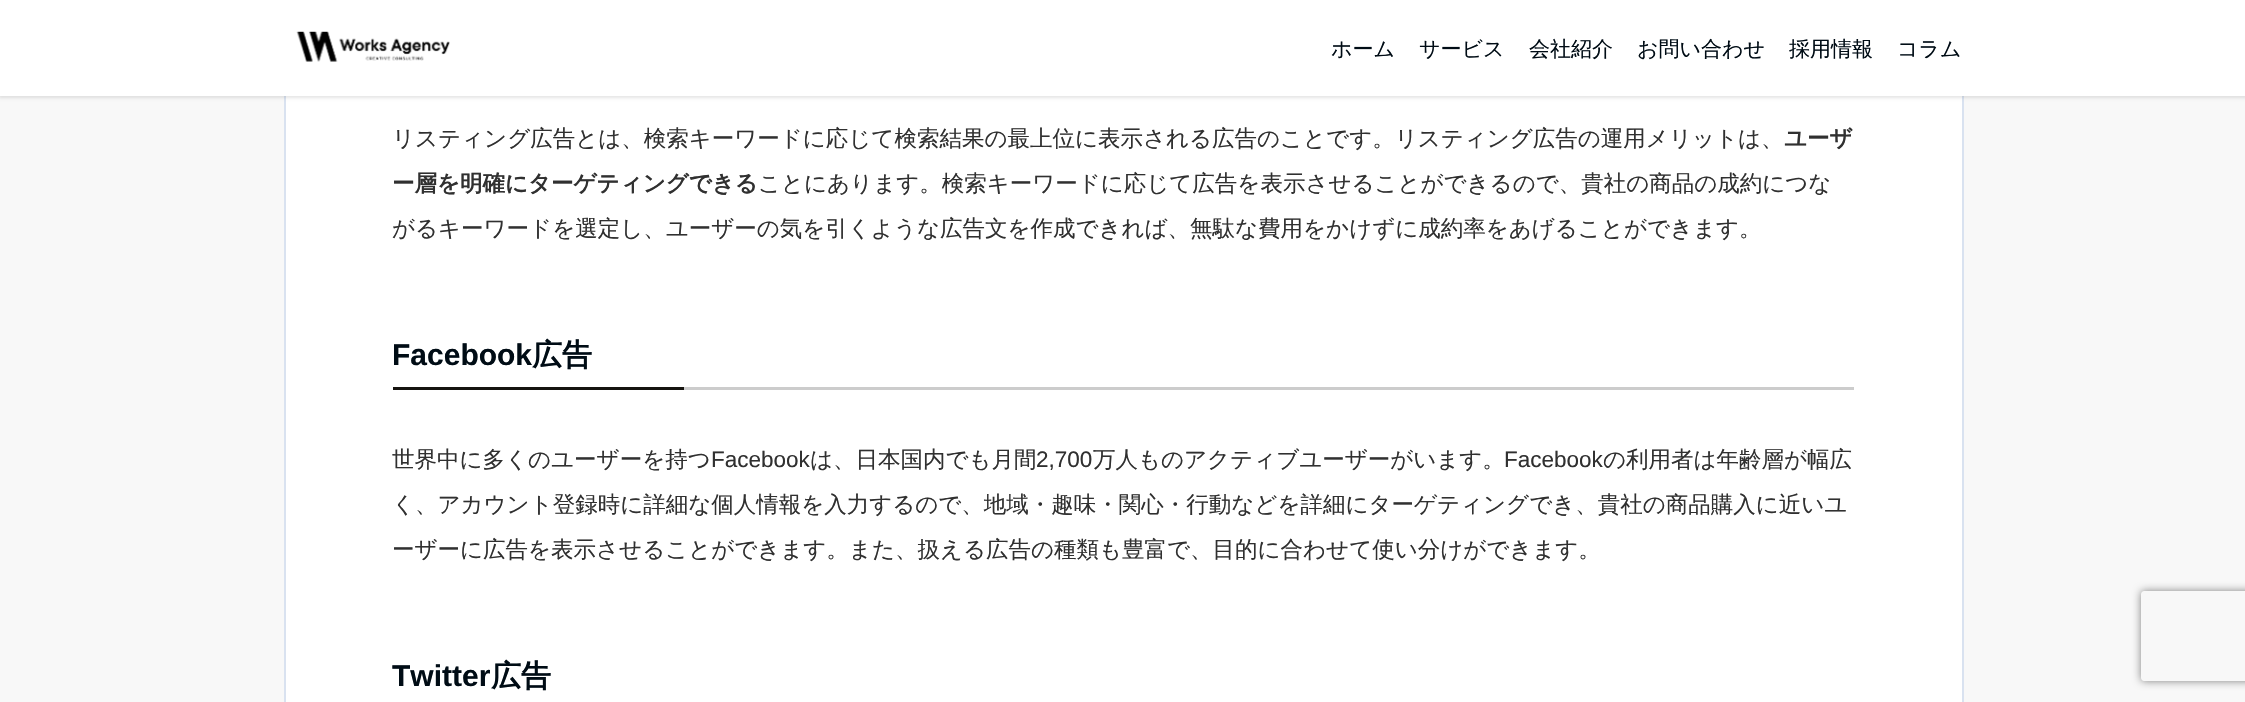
#include "include/core/SkBlurTypes.h"
#include "include/core/SkCanvas.h"
#include "include/core/SkData.h"
#include "include/core/SkFont.h"
#include "include/core/SkFontMgr.h"
#include "include/core/SkImage.h"
#include "include/core/SkMaskFilter.h"
#include "include/core/SkPaint.h"
#include "include/core/SkPathBuilder.h"
#include "include/core/SkTextBlob.h"
#include "include/effects/SkDashPathEffect.h"
#include "include/effects/SkGradientShader.h"
#include "include/utils/SkParsePath.h"

extern sk_sp<SkFontMgr> fontMgr;

static SkFont font(const char* family, int weight, float size, bool italic = false) {
    SkFontStyle style(weight, SkFontStyle::kNormal_Width,
        italic ? SkFontStyle::kItalic_Slant : SkFontStyle::kUpright_Slant);
    SkFont result(fontMgr->matchFamilyStyle(family, style), size);
    result.setSubpixel(true);
    return result;
}

static void drawLabel(SkCanvas* canvas, const char* s, float x, float y, const SkFont& font, SkColor color) {
    SkPaint ink(SkColor4f::FromColor(color));
    ink.setAntiAlias(true);
    canvas->drawString(s, x, y, font, ink);
}

static void fillRect(SkCanvas* canvas, float x, float y, float w, float h, SkColor color) {
    SkPaint ink(SkColor4f::FromColor(color));
    ink.setAntiAlias(true);
    canvas->drawRect(SkRect::MakeXYWH(x, y, w, h), ink);
}

static void drawPhoto(SkCanvas* canvas, const char* path, float x, float y, float w, float h) {
    auto image = SkImages::DeferredFromEncodedData(SkData::MakeFromFileName(path));
    canvas->drawImageRect(image, SkRect::MakeXYWH(x, y, w, h), SkSamplingOptions());
}

static SkPath parsePath(const char* data, bool evenOdd = false) {
    SkPath result = *SkParsePath::FromSVGString(data);
    if (evenOdd) result.setFillType(SkPathFillType::kEvenOdd);
    return result;
}

void draw(SkCanvas* canvas) {
    SkPaint paint;
    paint.setAntiAlias(true);
    canvas->clear(0xFFF8F8F8);
    fillRect(canvas, 286, 96, 1676, 606, 0xFFFFFFFF);
    paint.setStroke(true);
    paint.setStrokeWidth(2);
    paint.setColor(0xFFD9E2F0);
    canvas->drawRect(SkRect::MakeXYWH(285, -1, 1678, 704), paint);
    paint.setStroke(false);
    paint.setColor(0x1A000000);
    paint.setMaskFilter(SkMaskFilter::MakeBlur(kNormal_SkBlurStyle, 1.5f));
    canvas->drawRect(SkRect::MakeXYWH(-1, -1, 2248, 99), paint);
    paint.setMaskFilter(nullptr);
    fillRect(canvas, 0, 0, 2245, 96, 0xFFFFFFFF);
    drawPhoto(canvas, "assets/img1.png", 296, 31, 154, 31);
    SkFont font1 = font("WenQuanYi Zen Hei", 500, 21);
    drawLabel(canvas, "ホーム", 1331, 56, font1, 0xFF000C15);
    drawLabel(canvas, "サービス", 1419, 56, font1, 0xFF000C15);
    drawLabel(canvas, "会社紹介", 1529, 56, font1, 0xFF000C15);
    drawLabel(canvas, "お問い合わせ", 1637, 56, font1, 0xFF000C15);
    drawLabel(canvas, "採用情報", 1789, 56, font1, 0xFF000C15);
    drawLabel(canvas, "コラム", 1897, 56, font1, 0xFF000C15);
    SkFont font2 = font("WenQuanYi Zen Hei", 500, 22.5f);
    drawLabel(canvas, "リスティング広告とは、検索キーワードに応じて検索結果の最上位に表示される広告のことです。リスティング広告の運用メリットは、", 392, 146, font2, 0xFF303030);
    SkFont font3 = font("WenQuanYi Zen Hei", 700, 22.5f);
    drawLabel(canvas, "ユーザ", 1784, 146, font3, 0xFF303030);
    drawLabel(canvas, "ー層を明確にターゲティングできる", 392, 191, font3, 0xFF303030);
    drawLabel(canvas, "ことにあります。検索キーワードに応じて広告を表示させることができるので、貴社の商品の成約につな", 758, 191, font2, 0xFF303030);
    drawLabel(canvas, "がるキーワードを選定し、ユーザーの気を引くような広告文を作成できれば、無駄な費用をかけずに成約率をあげることができます。", 392, 236, font2, 0xFF303030);
    fillRect(canvas, 684, 387, 1170, 3, 0xFFCCCCCC);
    SkFont font4 = font("Liberation Sans", 700, 30);
    drawLabel(canvas, "Facebook", 392, 365, font4, 0xFF000C15);
    SkFont font5 = font("WenQuanYi Zen Hei", 700, 30);
    drawLabel(canvas, "広告", 532, 365, font5, 0xFF000C15);
    fillRect(canvas, 393, 387, 291, 3, 0xFF161410);
    drawLabel(canvas, "世界中に多くのユーザーを持つ", 392, 467, font2, 0xFF303030);
    SkFont font6 = font("Liberation Sans", 400, 22.5f);
    drawLabel(canvas, "Facebook", 711, 467, font6, 0xFF303030);
    drawLabel(canvas, "は、日本国内でも月間", 810, 467, font2, 0xFF303030);
    drawLabel(canvas, "2,700", 1036, 467, font6, 0xFF303030);
    drawLabel(canvas, "万人ものアクティブユーザーがいます。", 1093, 467, font2, 0xFF303030);
    drawLabel(canvas, "Facebook", 1504, 467, font6, 0xFF303030);
    drawLabel(canvas, "の利用者は年齢層が幅広", 1603, 467, font2, 0xFF303030);
    drawLabel(canvas, "く、アカウント登録時に詳細な個人情報を入力するので、地域・趣味・関心・行動などを詳細にターゲティングでき、貴社の商品購入に近いユ", 392, 512, font2, 0xFF303030);
    drawLabel(canvas, "ーザーに広告を表示させることができます。また、扱える広告の種類も豊富で、目的に合わせて使い分けができます。", 392, 557, font2, 0xFF303030);
    drawLabel(canvas, "Twitter", 392, 686, font4, 0xFF000C15);
    drawLabel(canvas, "広告", 491, 686, font5, 0xFF000C15);
    canvas->save();
    canvas->clipPath(parsePath("M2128 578H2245V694H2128ZM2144 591H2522C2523.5 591 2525 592.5 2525 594V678C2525 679.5 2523.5 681 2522 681H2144C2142.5 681 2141 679.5 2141 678V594C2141 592.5 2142.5 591 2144 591Z", true), true);
    paint.setColor(0xFF808080);
    paint.setMaskFilter(SkMaskFilter::MakeBlur(kNormal_SkBlurStyle, 4));
    canvas->drawRoundRect(SkRect::MakeXYWH(2141, 591, 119, 90), 3, 3, paint);
    paint.setMaskFilter(nullptr);
    canvas->restore();
}
